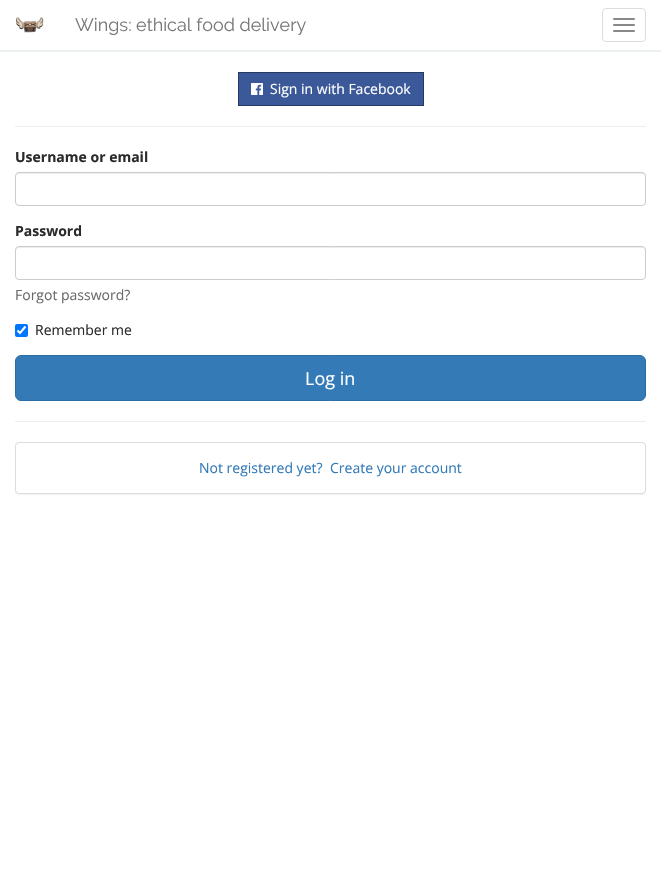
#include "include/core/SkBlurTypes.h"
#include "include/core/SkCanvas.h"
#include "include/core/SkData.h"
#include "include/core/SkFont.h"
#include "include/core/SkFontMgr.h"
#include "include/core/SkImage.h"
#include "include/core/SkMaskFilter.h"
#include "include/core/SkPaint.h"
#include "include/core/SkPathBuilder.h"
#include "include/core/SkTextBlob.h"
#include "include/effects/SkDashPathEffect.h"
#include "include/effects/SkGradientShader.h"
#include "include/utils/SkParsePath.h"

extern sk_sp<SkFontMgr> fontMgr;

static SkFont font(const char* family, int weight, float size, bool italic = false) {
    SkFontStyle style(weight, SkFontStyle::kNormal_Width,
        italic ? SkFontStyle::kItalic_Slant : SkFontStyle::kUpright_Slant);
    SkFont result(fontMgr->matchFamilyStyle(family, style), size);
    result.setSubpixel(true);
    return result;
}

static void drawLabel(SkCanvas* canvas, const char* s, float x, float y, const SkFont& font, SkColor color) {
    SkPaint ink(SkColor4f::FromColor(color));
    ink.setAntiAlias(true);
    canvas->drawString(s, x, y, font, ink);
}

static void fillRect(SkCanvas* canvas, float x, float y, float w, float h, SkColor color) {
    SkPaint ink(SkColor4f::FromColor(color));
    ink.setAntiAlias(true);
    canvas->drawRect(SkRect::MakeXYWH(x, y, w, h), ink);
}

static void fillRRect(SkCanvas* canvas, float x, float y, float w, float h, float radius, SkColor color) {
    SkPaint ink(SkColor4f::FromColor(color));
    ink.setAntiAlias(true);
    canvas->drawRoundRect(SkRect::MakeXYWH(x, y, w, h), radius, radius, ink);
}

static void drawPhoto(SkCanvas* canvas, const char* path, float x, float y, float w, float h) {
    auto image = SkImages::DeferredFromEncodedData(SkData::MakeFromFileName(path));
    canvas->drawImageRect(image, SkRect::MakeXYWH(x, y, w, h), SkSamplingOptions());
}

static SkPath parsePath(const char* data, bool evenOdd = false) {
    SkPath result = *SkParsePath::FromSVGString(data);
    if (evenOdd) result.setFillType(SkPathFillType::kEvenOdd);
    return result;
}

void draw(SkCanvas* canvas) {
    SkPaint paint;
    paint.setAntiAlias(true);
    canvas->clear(0xFFFFFFFF);
    fillRect(canvas, 0, 50, 661, 2, 0xFFECF0F1);
    drawPhoto(canvas, "assets/img1.png", 16, 17, 28, 16);
    SkFont font1 = font("Raleway", 400, 18);
    drawLabel(canvas, "Wings: ethical food delivery", 75, 31, font1, 0xFF777777);
    paint.setStroke(true);
    paint.setStrokeWidth(1);
    paint.setColor(0xFFDDDDDD);
    canvas->drawRoundRect(SkRect::MakeXYWH(602.5f, 8.5f, 43, 33), 3.5f, 3.5f, paint);
    fillRRect(canvas, 613, 18, 22, 2, 1, 0xFF888888);
    fillRRect(canvas, 613, 24, 22, 2, 1, 0xFF888888);
    fillRRect(canvas, 613, 30, 22, 2, 1, 0xFF888888);
    paint.setStroke(false);
    paint.setColor(0xFF3B5998);
    canvas->drawRect(SkRect::MakeXYWH(238.5f, 72.5f, 185, 33), paint);
    paint.setStroke(true);
    paint.setColor(0xFF263961);
    canvas->drawRect(SkRect::MakeXYWH(238.5f, 72.5f, 185, 33), paint);
    drawPhoto(canvas, "assets/img2.png", 251, 83, 12, 12);
    SkFont font2 = font("Open Sans", 400, 14);
    drawLabel(canvas, "Sign in with Facebook", 270, 94, font2, 0xFFFFFFFF);
    fillRect(canvas, 15, 126, 631, 1, 0xFFEEEEEE);
    SkFont font3 = font("Open Sans", 700, 14);
    drawLabel(canvas, "Username or email", 15, 162, font3, 0xFF2B2B2B);
    paint.setStroke(false);
    paint.setColor(0xFFECECEC);
    canvas->drawPath(parsePath("M19 174H642C644 174 645 175 645 177V176C645 174 644 173 642 173H19C17 173 16 174 16 176V177C16 175 17 174 19 174Z"), paint);
    paint.setStroke(true);
    paint.setColor(0xFFCCCCCC);
    canvas->drawRoundRect(SkRect::MakeXYWH(15.5f, 172.5f, 630, 33), 3.5f, 3.5f, paint);
    drawLabel(canvas, "Password", 15, 236, font3, 0xFF2B2B2B);
    paint.setStroke(false);
    paint.setColor(0xFFECECEC);
    canvas->drawPath(parsePath("M19 248H642C644 248 645 249 645 251V250C645 248 644 247 642 247H19C17 247 16 248 16 250V251C16 249 17 248 19 248Z"), paint);
    paint.setStroke(true);
    paint.setColor(0xFFCCCCCC);
    canvas->drawRoundRect(SkRect::MakeXYWH(15.5f, 246.5f, 630, 33), 3.5f, 3.5f, paint);
    drawLabel(canvas, "Forgot password?", 15, 300, font2, 0xFF6B6B6B);
    fillRRect(canvas, 15, 324, 13, 13, 2, 0xFF0075FF);
    paint.setStrokeWidth(2.1f);
    paint.setColor(0xFFFFFFFF);
    canvas->drawPath(parsePath("M17.5 330.5L20 333L25.5 326.5"), paint);
    drawLabel(canvas, "Remember me", 35, 335, font2, 0xFF2B2B2B);
    paint.setStroke(false);
    paint.setColor(0xFF337AB7);
    canvas->drawRoundRect(SkRect::MakeXYWH(15.5f, 355.5f, 630, 45), 5.5f, 5.5f, paint);
    paint.setStroke(true);
    paint.setStrokeWidth(1);
    paint.setColor(0xFF2E6DA4);
    canvas->drawRoundRect(SkRect::MakeXYWH(15.5f, 355.5f, 630, 45), 5.5f, 5.5f, paint);
    SkFont font4 = font("Open Sans", 400, 18);
    drawLabel(canvas, "Log in", 305, 385, font4, 0xFFFFFFFF);
    fillRect(canvas, 15, 421, 631, 1, 0xFFEEEEEE);
    paint.setStroke(false);
    paint.setColor(0x0D000000);
    paint.setMaskFilter(SkMaskFilter::MakeBlur(kNormal_SkBlurStyle, 0.5f));
    canvas->drawRoundRect(SkRect::MakeXYWH(15, 443, 631, 52), 4, 4, paint);
    paint.setMaskFilter(nullptr);
    paint.setColor(0xFFFFFFFF);
    canvas->drawRoundRect(SkRect::MakeXYWH(15.5f, 442.5f, 630, 51), 3.5f, 3.5f, paint);
    paint.setStroke(true);
    paint.setColor(0xFFDDDDDD);
    canvas->drawRoundRect(SkRect::MakeXYWH(15.5f, 442.5f, 630, 51), 3.5f, 3.5f, paint);
    drawLabel(canvas, "Not registered yet?", 199, 473, font2, 0xFF337AB7);
    drawLabel(canvas, "Create your account", 330, 473, font2, 0xFF337AB7);
}
